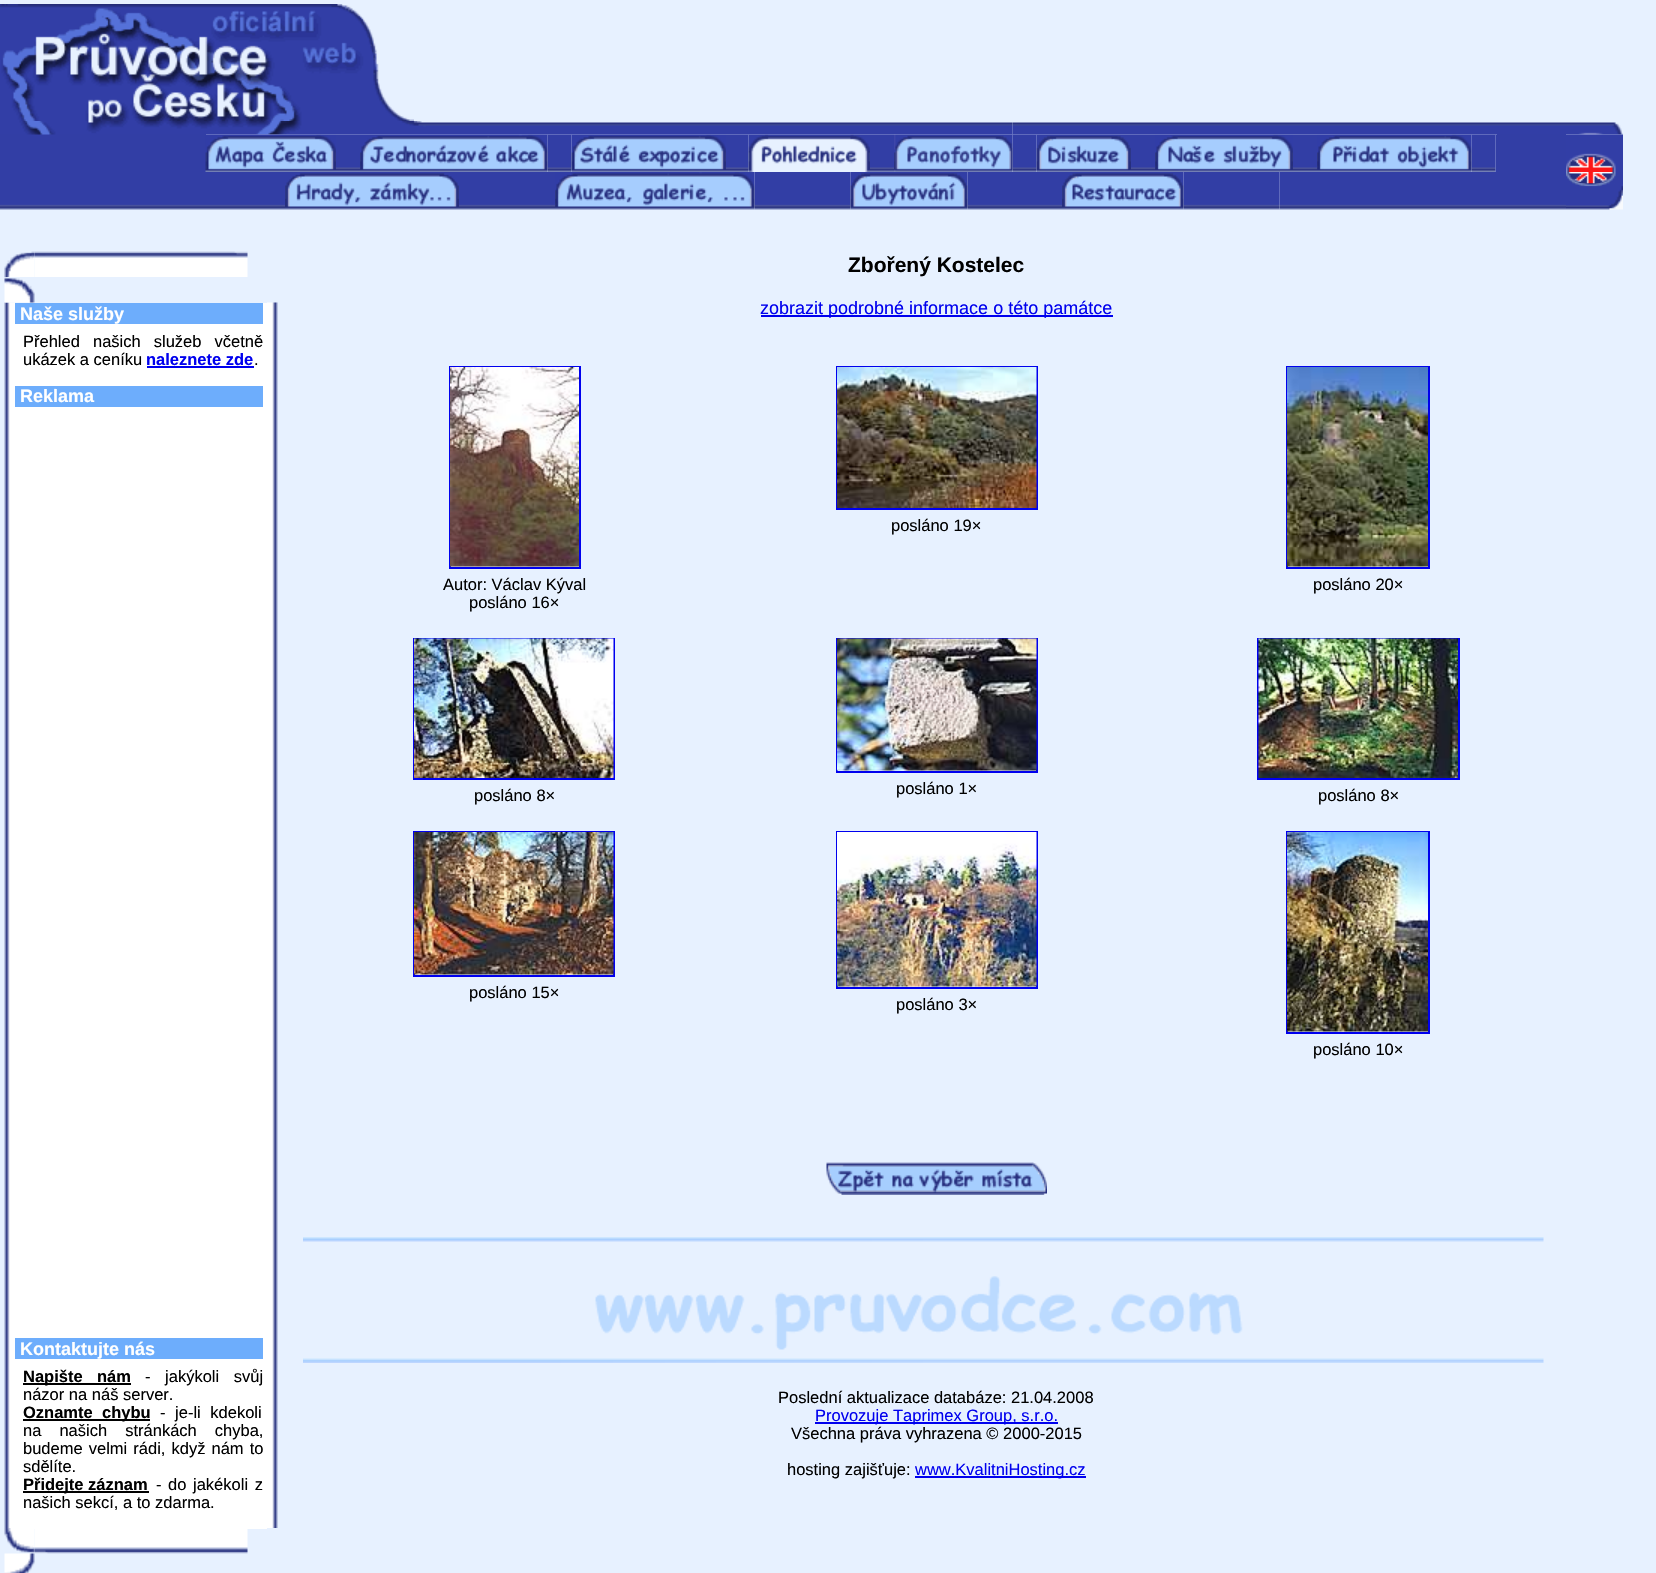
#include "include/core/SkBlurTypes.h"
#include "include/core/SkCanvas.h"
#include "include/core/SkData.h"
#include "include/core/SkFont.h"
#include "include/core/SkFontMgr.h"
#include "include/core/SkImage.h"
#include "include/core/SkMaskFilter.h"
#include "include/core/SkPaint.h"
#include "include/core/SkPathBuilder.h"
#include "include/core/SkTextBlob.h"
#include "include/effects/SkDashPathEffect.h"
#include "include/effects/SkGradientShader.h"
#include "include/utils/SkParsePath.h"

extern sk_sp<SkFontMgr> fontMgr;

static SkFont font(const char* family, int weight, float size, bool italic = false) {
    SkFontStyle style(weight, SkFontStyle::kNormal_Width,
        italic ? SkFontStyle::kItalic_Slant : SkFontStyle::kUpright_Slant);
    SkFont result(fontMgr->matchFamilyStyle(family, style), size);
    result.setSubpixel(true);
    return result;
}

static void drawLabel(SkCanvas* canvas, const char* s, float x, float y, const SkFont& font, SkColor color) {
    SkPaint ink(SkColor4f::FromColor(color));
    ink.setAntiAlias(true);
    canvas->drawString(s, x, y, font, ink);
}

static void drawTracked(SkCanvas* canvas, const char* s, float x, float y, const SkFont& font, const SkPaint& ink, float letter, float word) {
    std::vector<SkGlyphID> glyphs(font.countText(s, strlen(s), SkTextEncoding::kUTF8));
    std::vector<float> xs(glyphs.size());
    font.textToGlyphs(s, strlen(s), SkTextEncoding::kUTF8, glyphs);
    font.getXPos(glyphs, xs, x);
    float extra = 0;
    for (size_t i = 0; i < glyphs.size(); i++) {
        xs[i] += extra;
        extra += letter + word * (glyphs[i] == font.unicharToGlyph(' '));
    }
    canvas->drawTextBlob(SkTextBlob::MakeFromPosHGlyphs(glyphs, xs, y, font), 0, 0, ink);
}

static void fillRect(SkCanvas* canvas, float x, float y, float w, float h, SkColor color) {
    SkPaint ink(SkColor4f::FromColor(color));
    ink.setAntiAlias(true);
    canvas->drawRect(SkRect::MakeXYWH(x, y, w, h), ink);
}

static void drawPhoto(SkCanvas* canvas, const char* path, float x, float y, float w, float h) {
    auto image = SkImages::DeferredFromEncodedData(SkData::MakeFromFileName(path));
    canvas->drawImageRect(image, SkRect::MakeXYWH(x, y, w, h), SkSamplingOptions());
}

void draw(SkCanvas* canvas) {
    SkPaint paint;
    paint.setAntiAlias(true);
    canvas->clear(0xFFE7F1FF);
    drawPhoto(canvas, "assets/img1.png", 0, 4, 414, 117);
    fillRect(canvas, 0, 134, 206, 38, 0xFF323EA5);
    drawPhoto(canvas, "assets/img7.png", 336, 134, 24, 38);
    drawPhoto(canvas, "assets/img9.png", 547, 134, 25, 38);
    drawPhoto(canvas, "assets/img11.png", 726, 134, 23, 38);
    drawPhoto(canvas, "assets/img7.png", 870, 134, 24, 38);
    drawPhoto(canvas, "assets/img9.png", 1012, 134, 25, 38);
    drawPhoto(canvas, "assets/img2.png", 0, 121, 1013, 14);
    drawPhoto(canvas, "assets/img3.png", 1012, 122, 62, 13);
    drawPhoto(canvas, "assets/img4.png", 1074, 122, 492, 13);
    drawPhoto(canvas, "assets/img5.png", 1566, 122, 57, 13);
    drawPhoto(canvas, "assets/img6.png", 205, 134, 131, 38);
    drawPhoto(canvas, "assets/img8.png", 360, 134, 188, 38);
    drawPhoto(canvas, "assets/img10.png", 571, 134, 155, 38);
    drawPhoto(canvas, "assets/img12.png", 748, 134, 122, 38);
    drawPhoto(canvas, "assets/img13.png", 894, 134, 119, 38);
    drawPhoto(canvas, "assets/img14.png", 1036, 134, 95, 38);
    drawPhoto(canvas, "assets/img15.png", 1131, 134, 24, 38);
    drawPhoto(canvas, "assets/img16.png", 1155, 134, 138, 38);
    drawPhoto(canvas, "assets/img15.png", 1293, 134, 24, 38);
    drawPhoto(canvas, "assets/img18.png", 1471, 134, 25, 38);
    drawPhoto(canvas, "assets/img17.png", 1317, 134, 155, 38);
    drawPhoto(canvas, "assets/img19.png", 1495, 134, 2, 38);
    fillRect(canvas, 1497, 134, 69, 38, 0xFF323EA5);
    drawPhoto(canvas, "assets/img20.png", 1566, 134, 57, 38);
    drawPhoto(canvas, "assets/img21.png", 0, 172, 285, 38);
    drawPhoto(canvas, "assets/img22.png", 285, 172, 174, 38);
    drawPhoto(canvas, "assets/img23.png", 459, 172, 96, 38);
    drawPhoto(canvas, "assets/img25.png", 754, 172, 97, 38);
    drawPhoto(canvas, "assets/img24.png", 555, 172, 200, 38);
    drawPhoto(canvas, "assets/img27.png", 967, 172, 95, 38);
    drawPhoto(canvas, "assets/img26.png", 850, 172, 118, 38);
    drawPhoto(canvas, "assets/img25.png", 1183, 172, 97, 38);
    drawPhoto(canvas, "assets/img28.png", 1062, 172, 122, 38);
    drawPhoto(canvas, "assets/img29.png", 1279, 172, 287, 38);
    drawPhoto(canvas, "assets/img30.png", 1566, 172, 57, 38);
    drawPhoto(canvas, "assets/img31.png", 4, 251, 31, 26);
    drawPhoto(canvas, "assets/img32.png", 34, 251, 214, 26);
    drawPhoto(canvas, "assets/img34.png", 4, 302, 11, 1226);
    drawPhoto(canvas, "assets/img33.png", 4, 277, 31, 26);
    fillRect(canvas, 15, 303, 252, 1226, 0xFFFFFFFF);
    fillRect(canvas, 15, 303, 248, 21, 0xFF6DADFC);
    SkFont font1 = font("Liberation Sans", 700, 18);
    drawLabel(canvas, "Naše služby", 20, 320, font1, 0xFFFFFFFF);
    SkFont font2 = font("Liberation Sans", 400, 16.5f);
    paint.setColor(0xFF000000);
    drawTracked(canvas, "Přehled našich služeb včetně", 23, 347, font2, paint, 0, 8.5f);
    drawLabel(canvas, "ukázek a ceníku", 23, 365, font2, 0xFF000000);
    SkFont font3 = font("Liberation Sans", 700, 16.5f);
    drawLabel(canvas, "naleznete zde", 146, 365, font3, 0xFF0000EE);
    fillRect(canvas, 147, 366, 107, 2, 0xFF0000EE);
    drawLabel(canvas, ".", 254, 365, font2, 0xFF000000);
    fillRect(canvas, 15, 386, 248, 21, 0xFF6DADFC);
    drawLabel(canvas, "Reklama", 20, 402, font1, 0xFFFFFFFF);
    fillRect(canvas, 15, 1338, 248, 21, 0xFF6DADFC);
    drawLabel(canvas, "Kontaktujte nás", 20, 1355, font1, 0xFFFFFFFF);
    fillRect(canvas, 23, 1383, 108, 2, 0xFF000000);
    drawLabel(canvas, "Napište", 23, 1382, font3, 0xFF000000);
    drawLabel(canvas, "nám", 97, 1382, font3, 0xFF000000);
    drawTracked(canvas, "- jakýkoli svůj", 145, 1382, font2, paint, 0, 10);
    drawLabel(canvas, "názor na náš server.", 23, 1400, font2, 0xFF000000);
    fillRect(canvas, 23, 1419, 127, 2, 0xFF000000);
    drawLabel(canvas, "Oznamte", 23, 1418, font3, 0xFF000000);
    drawLabel(canvas, "chybu", 102, 1418, font3, 0xFF000000);
    drawTracked(canvas, "- je-li kdekoli", 160, 1418, font2, paint, 0, 5);
    drawTracked(canvas, "na našich stránkách chyba,", 23, 1436, font2, paint, 0, 13.5f);
    drawTracked(canvas, "budeme velmi rádi, když nám to", 23, 1454, font2, paint, 0, 1.5f);
    drawLabel(canvas, "sdělíte.", 23, 1472, font2, 0xFF000000);
    fillRect(canvas, 23, 1491, 126, 2, 0xFF000000);
    drawLabel(canvas, "Přidejte záznam", 23, 1490, font3, 0xFF000000);
    drawTracked(canvas, "- do jakékoli z", 156, 1490, font2, paint, 0, 2);
    drawLabel(canvas, "našich sekcí, a to zdarma.", 23, 1508, font2, 0xFF000000);
    drawPhoto(canvas, "assets/img35.png", 267, 302, 11, 1226);
    drawPhoto(canvas, "assets/img36.png", 4, 1528, 31, 26);
    drawPhoto(canvas, "assets/img37.png", 34, 1529, 214, 25);
    drawPhoto(canvas, "assets/img38.png", 4, 1553, 31, 20);
    SkFont font4 = font("Liberation Sans", 700, 21);
    drawLabel(canvas, "Zbořený Kostelec", 848, 272, font4, 0xFF000000);
    fillRect(canvas, 761, 315, 352, 2, 0xFF0000EE);
    SkFont font5 = font("Liberation Sans", 400, 18);
    drawLabel(canvas, "zobrazit podrobné informace o této památce", 760, 314, font5, 0xFF0000EE);
    paint.setStroke(true);
    paint.setStrokeWidth(2);
    paint.setColor(0xFF0000EE);
    canvas->drawRect(SkRect::MakeXYWH(837, 367, 200, 142), paint);
    drawPhoto(canvas, "assets/img39.png", 837, 367, 200, 141);
    drawLabel(canvas, "posláno 19×", 891, 531, font2, 0xFF000000);
    canvas->drawRect(SkRect::MakeXYWH(450, 367, 130, 201), paint);
    drawPhoto(canvas, "assets/img40.png", 450, 367, 129, 200);
    drawLabel(canvas, "Autor: Václav Kýval", 443, 590, font2, 0xFF000000);
    drawLabel(canvas, "posláno 16×", 469, 608, font2, 0xFF000000);
    canvas->drawRect(SkRect::MakeXYWH(1287, 367, 142, 201), paint);
    drawPhoto(canvas, "assets/img41.png", 1287, 367, 141, 200);
    drawLabel(canvas, "posláno 20×", 1313, 590, font2, 0xFF000000);
    canvas->drawRect(SkRect::MakeXYWH(414, 639, 200, 140), paint);
    drawPhoto(canvas, "assets/img42.png", 414, 638, 200, 140);
    drawLabel(canvas, "posláno 8×", 474, 801, font2, 0xFF000000);
    canvas->drawRect(SkRect::MakeXYWH(837, 639, 200, 133), paint);
    drawPhoto(canvas, "assets/img43.png", 837, 638, 200, 133);
    drawLabel(canvas, "posláno 1×", 896, 794, font2, 0xFF000000);
    canvas->drawRect(SkRect::MakeXYWH(1258, 639, 201, 140), paint);
    drawPhoto(canvas, "assets/img44.png", 1258, 638, 200, 140);
    drawLabel(canvas, "posláno 8×", 1318, 801, font2, 0xFF000000);
    canvas->drawRect(SkRect::MakeXYWH(414, 832, 200, 144), paint);
    drawPhoto(canvas, "assets/img45.png", 414, 832, 200, 143);
    drawLabel(canvas, "posláno 15×", 469, 998, font2, 0xFF000000);
    canvas->drawRect(SkRect::MakeXYWH(837, 832, 200, 156), paint);
    drawPhoto(canvas, "assets/img46.png", 837, 832, 200, 155);
    drawLabel(canvas, "posláno 3×", 896, 1010, font2, 0xFF000000);
    canvas->drawRect(SkRect::MakeXYWH(1287, 832, 142, 201), paint);
    drawPhoto(canvas, "assets/img47.png", 1287, 832, 141, 200);
    drawLabel(canvas, "posláno 10×", 1313, 1055, font2, 0xFF000000);
    drawPhoto(canvas, "assets/img48.png", 826, 1162, 221, 33);
    drawPhoto(canvas, "assets/img49.png", 303, 1237, 1241, 5);
    drawPhoto(canvas, "assets/img50.png", 595, 1276, 648, 74);
    drawPhoto(canvas, "assets/img51.png", 303, 1358, 1241, 5);
    drawLabel(canvas, "Poslední aktualizace databáze: 21.04.2008", 778, 1403, font2, 0xFF000000);
    fillRect(canvas, 815, 1422, 243, 2, 0xFF0000EE);
    drawLabel(canvas, "Provozuje Taprimex Group, s.r.o.", 815, 1421, font2, 0xFF0000EE);
    drawLabel(canvas, "Všechna práva vyhrazena © 2000-2015", 791, 1439, font2, 0xFF000000);
    drawLabel(canvas, "hosting zajišťuje:", 787, 1475, font2, 0xFF000000);
    fillRect(canvas, 915, 1476, 171, 2, 0xFF0000EE);
    drawLabel(canvas, "www.KvalitniHosting.cz", 915, 1475, font2, 0xFF0000EE);
}
